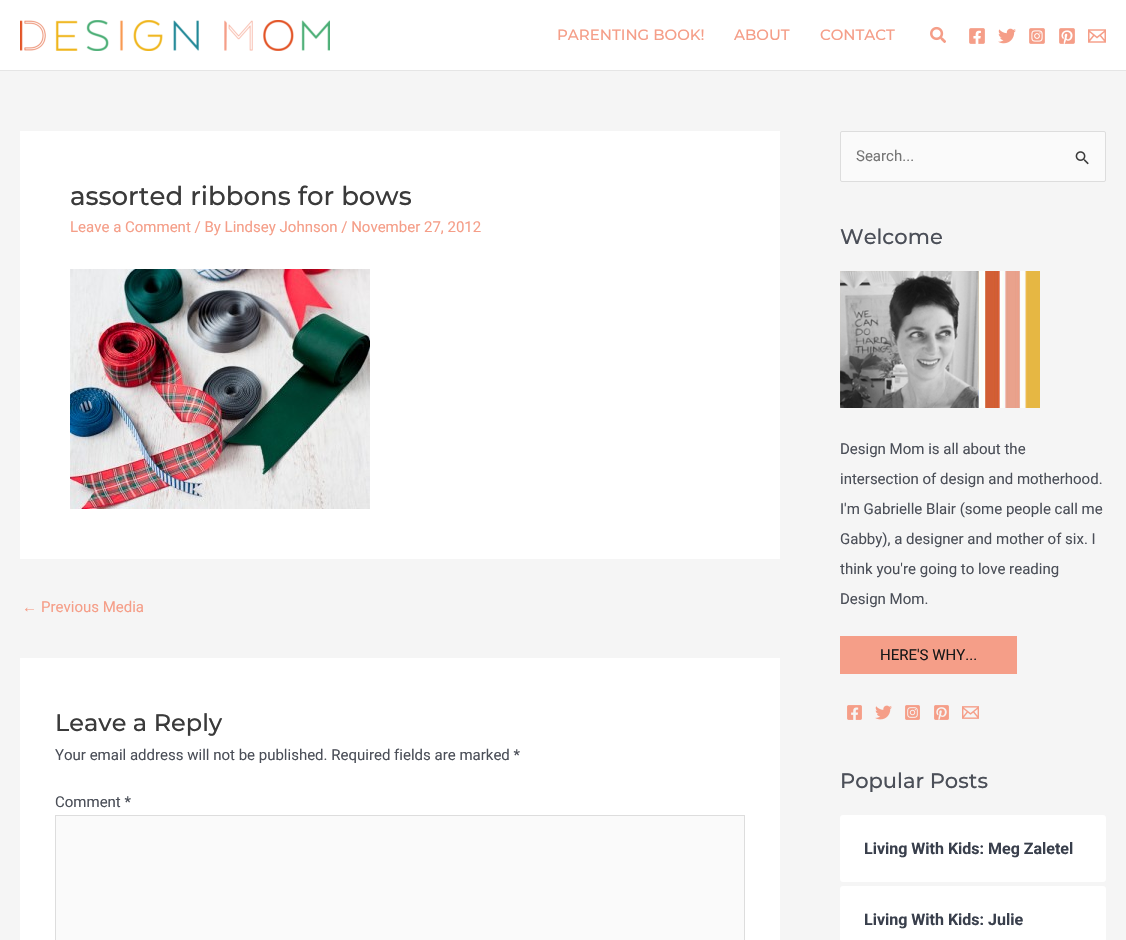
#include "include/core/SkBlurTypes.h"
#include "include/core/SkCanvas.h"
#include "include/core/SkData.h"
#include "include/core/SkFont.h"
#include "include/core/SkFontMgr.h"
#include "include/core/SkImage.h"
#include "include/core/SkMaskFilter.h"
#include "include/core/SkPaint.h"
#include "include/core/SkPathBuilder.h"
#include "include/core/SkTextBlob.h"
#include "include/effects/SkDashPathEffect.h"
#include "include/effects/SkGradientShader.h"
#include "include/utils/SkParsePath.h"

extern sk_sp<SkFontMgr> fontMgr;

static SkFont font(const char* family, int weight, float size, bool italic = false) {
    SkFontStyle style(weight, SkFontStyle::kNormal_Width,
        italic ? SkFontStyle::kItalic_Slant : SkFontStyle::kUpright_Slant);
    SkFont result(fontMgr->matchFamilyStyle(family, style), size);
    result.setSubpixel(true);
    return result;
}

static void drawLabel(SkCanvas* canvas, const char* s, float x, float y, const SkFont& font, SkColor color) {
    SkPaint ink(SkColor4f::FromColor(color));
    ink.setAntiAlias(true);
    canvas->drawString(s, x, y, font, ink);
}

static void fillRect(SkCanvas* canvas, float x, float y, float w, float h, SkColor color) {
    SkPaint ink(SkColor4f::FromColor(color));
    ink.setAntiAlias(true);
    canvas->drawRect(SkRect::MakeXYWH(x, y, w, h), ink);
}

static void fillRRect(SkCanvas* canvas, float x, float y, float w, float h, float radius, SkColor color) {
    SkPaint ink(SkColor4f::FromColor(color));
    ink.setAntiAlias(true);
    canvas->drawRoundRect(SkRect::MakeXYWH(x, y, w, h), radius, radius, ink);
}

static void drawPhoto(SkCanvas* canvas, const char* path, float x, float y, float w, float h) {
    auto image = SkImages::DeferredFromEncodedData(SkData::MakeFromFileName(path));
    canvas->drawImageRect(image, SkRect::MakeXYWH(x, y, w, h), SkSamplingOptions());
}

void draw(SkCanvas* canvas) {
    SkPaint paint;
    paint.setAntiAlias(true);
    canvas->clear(0xFFF5F5F5);
    fillRect(canvas, 0, 0, 1126, 70, 0xFFFFFFFF);
    fillRect(canvas, 0, 70, 1126, 1, 0xFFE5E5E5);
    drawPhoto(canvas, "assets/img1.png", 20, 20, 310, 31);
    SkFont font1 = font("Montserrat", 100, 15);
    drawLabel(canvas, "PARENTING BOOK!", 557, 40, font1, 0xFFF59E88);
    drawLabel(canvas, "ABOUT", 734, 40, font1, 0xFFF59E88);
    drawLabel(canvas, "CONTACT", 820, 40, font1, 0xFFF59E88);
    drawPhoto(canvas, "assets/img2.png", 930, 26, 16, 17);
    drawPhoto(canvas, "assets/img3.png", 969, 28, 16, 16);
    drawPhoto(canvas, "assets/img4.png", 998, 28, 18, 16);
    drawPhoto(canvas, "assets/img5.png", 1029, 28, 16, 16);
    drawPhoto(canvas, "assets/img6.png", 1059, 28, 16, 16);
    drawPhoto(canvas, "assets/img7.png", 1088, 29, 18, 14);
    fillRect(canvas, 20, 131, 760, 428, 0xFFFFFFFF);
    SkFont font2 = font("Montserrat", 100, 26);
    drawLabel(canvas, "assorted ribbons for bows", 70, 205, font2, 0xFF3A3A3A);
    SkFont font3 = font("Roboto", 400, 15);
    drawLabel(canvas, "Leave a Comment / By Lindsey Johnson / November 27, 2012", 70, 232, font3, 0xFFF59E88);
    drawPhoto(canvas, "assets/img8.png", 70, 269, 300, 240);
    SkFont font4 = font("Liberation Sans", 400, 15);
    drawLabel(canvas, "←", 22, 612, font4, 0xFFF59E88);
    drawLabel(canvas, "Previous Media", 41, 612, font3, 0xFFF59E88);
    fillRect(canvas, 20, 658, 760, 282, 0xFFFFFFFF);
    SkFont font5 = font("Montserrat", 100, 24);
    drawLabel(canvas, "Leave a Reply", 55, 731, font5, 0xFF3A3A3A);
    drawLabel(canvas, "Your email address will not be published. Required fields are marked *", 55, 760, font3, 0xFF4B4F58);
    drawLabel(canvas, "Comment *", 55, 807, font3, 0xFF4B4F58);
    paint.setColor(0xFFFAFAFA);
    canvas->drawRect(SkRect::MakeXYWH(55.5f, 815.5f, 689, 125), paint);
    paint.setStroke(true);
    paint.setStrokeWidth(1);
    paint.setColor(0xFFDDDDDD);
    canvas->drawRect(SkRect::MakeXYWH(55.5f, 815.5f, 689, 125), paint);
    paint.setStroke(false);
    paint.setColor(0xFFFAFAFA);
    canvas->drawRoundRect(SkRect::MakeXYWH(840.5f, 131.5f, 265, 50), 1.5f, 1.5f, paint);
    paint.setStroke(true);
    paint.setColor(0xFFDDDDDD);
    canvas->drawRoundRect(SkRect::MakeXYWH(840.5f, 131.5f, 265, 50), 1.5f, 1.5f, paint);
    drawLabel(canvas, "Search...", 856, 161, font3, 0xFF757575);
    drawPhoto(canvas, "assets/img9.png", 1075, 151, 14, 14);
    SkFont font6 = font("Montserrat", 100, 21);
    drawLabel(canvas, "Welcome", 840, 244, font6, 0xFF4B4F58);
    drawPhoto(canvas, "assets/img10.png", 840, 271, 200, 137);
    drawLabel(canvas, "Design Mom is all about the", 840, 454, font3, 0xFF4B4F58);
    drawLabel(canvas, "intersection of design and motherhood.", 840, 484, font3, 0xFF4B4F58);
    drawLabel(canvas, "I'm Gabrielle Blair (some people call me", 840, 514, font3, 0xFF4B4F58);
    drawLabel(canvas, "Gabby), a designer and mother of six. I", 840, 544, font3, 0xFF4B4F58);
    drawLabel(canvas, "think you're going to love reading", 840, 574, font3, 0xFF4B4F58);
    drawLabel(canvas, "Design Mom.", 840, 604, font3, 0xFF4B4F58);
    fillRect(canvas, 840, 636, 177, 38, 0xFFF59E88);
    drawLabel(canvas, "HERE'S WHY...", 880, 660, font3, 0xFF181818);
    drawPhoto(canvas, "assets/img11.png", 847, 705, 15, 15);
    drawPhoto(canvas, "assets/img12.png", 875, 705, 17, 15);
    drawPhoto(canvas, "assets/img13.png", 905, 705, 15, 15);
    drawPhoto(canvas, "assets/img14.png", 934, 705, 15, 15);
    drawPhoto(canvas, "assets/img15.png", 962, 706, 17, 13);
    drawLabel(canvas, "Popular Posts", 840, 788, font6, 0xFF4B4F58);
    fillRRect(canvas, 840, 815, 266, 67, 3, 0xFFFFFFFF);
    SkFont font7 = font("Roboto", 700, 16);
    drawLabel(canvas, "Living With Kids: Meg Zaletel", 864, 854, font7, 0xFF393F4C);
    fillRRect(canvas, 840, 886, 266, 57, 3, 0xFFFFFFFF);
    drawLabel(canvas, "Living With Kids: Julie", 864, 925, font7, 0xFF393F4C);
}
